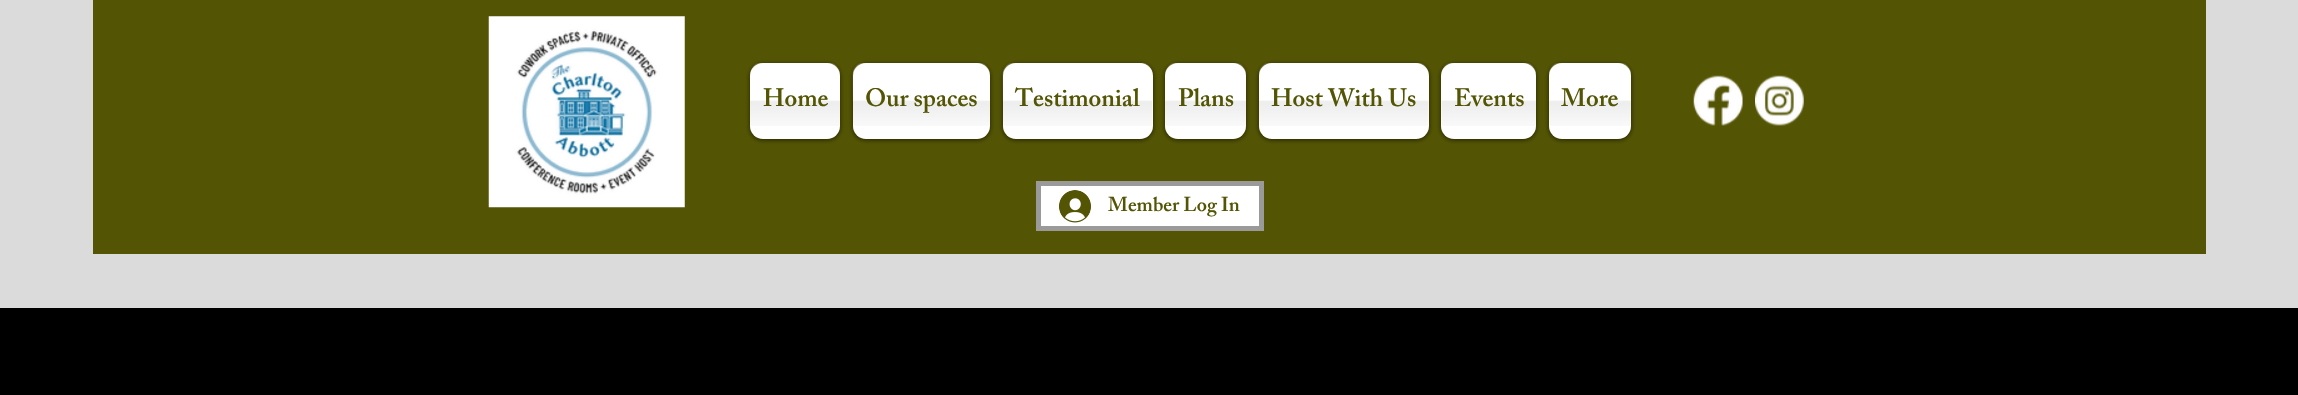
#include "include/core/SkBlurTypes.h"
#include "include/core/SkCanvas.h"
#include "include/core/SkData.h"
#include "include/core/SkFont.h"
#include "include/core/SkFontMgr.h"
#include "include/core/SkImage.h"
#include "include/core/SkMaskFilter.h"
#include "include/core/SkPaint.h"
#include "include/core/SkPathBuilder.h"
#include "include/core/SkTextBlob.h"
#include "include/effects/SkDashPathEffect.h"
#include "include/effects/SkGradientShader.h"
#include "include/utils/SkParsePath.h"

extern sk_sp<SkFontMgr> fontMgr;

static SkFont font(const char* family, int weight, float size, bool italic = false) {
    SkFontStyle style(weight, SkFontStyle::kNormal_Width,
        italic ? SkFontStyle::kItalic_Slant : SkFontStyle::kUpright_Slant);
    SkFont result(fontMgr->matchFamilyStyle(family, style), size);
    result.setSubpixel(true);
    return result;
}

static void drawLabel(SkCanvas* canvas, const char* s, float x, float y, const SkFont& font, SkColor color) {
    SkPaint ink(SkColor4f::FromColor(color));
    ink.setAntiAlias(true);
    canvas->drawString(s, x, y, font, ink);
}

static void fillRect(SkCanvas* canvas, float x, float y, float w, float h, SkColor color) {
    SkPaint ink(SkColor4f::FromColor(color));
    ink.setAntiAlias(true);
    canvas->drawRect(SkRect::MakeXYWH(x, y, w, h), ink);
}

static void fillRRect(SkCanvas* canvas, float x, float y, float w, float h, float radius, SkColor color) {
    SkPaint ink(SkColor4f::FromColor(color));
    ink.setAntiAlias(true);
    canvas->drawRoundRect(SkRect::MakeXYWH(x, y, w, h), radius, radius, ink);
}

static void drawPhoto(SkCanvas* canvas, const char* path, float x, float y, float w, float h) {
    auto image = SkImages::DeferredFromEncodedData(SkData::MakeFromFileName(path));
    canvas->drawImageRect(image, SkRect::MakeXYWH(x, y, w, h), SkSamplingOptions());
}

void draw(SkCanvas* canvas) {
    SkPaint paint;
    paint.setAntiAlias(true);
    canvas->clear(0xFF000000);
    fillRect(canvas, 0, 0, 2298, 308, 0xFFDBDBDB);
    fillRect(canvas, 93, 0, 2113, 254, 0xFF545504);
    drawPhoto(canvas, "assets/img1.png", 488, 16, 197, 192);
    paint.setColor(0x99000000);
    paint.setMaskFilter(SkMaskFilter::MakeBlur(kNormal_SkBlurStyle, 2.5f));
    canvas->drawRoundRect(SkRect::MakeXYWH(750, 64, 90, 76), 13, 13, paint);
    paint.setMaskFilter(nullptr);
    fillRRect(canvas, 750, 63, 90, 76, 13, 0xFFFFFFFF);
    drawPhoto(canvas, "assets/img2.png", 750, 63, 90, 63);
    SkFont font1 = font("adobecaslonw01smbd", 600, 25);
    drawLabel(canvas, "Home", 763, 106, font1, 0xFF545504);
    paint.setMaskFilter(SkMaskFilter::MakeBlur(kNormal_SkBlurStyle, 2.5f));
    canvas->drawRoundRect(SkRect::MakeXYWH(853, 64, 137, 76), 13, 13, paint);
    paint.setMaskFilter(nullptr);
    fillRRect(canvas, 853, 63, 137, 76, 13, 0xFFFFFFFF);
    drawPhoto(canvas, "assets/img3.png", 852, 63, 138, 63);
    drawLabel(canvas, "Our spaces", 865, 106, font1, 0xFF545504);
    paint.setMaskFilter(SkMaskFilter::MakeBlur(kNormal_SkBlurStyle, 2.5f));
    canvas->drawRoundRect(SkRect::MakeXYWH(1003, 64, 150, 76), 13, 13, paint);
    paint.setMaskFilter(nullptr);
    fillRRect(canvas, 1003, 63, 150, 76, 13, 0xFFFFFFFF);
    drawPhoto(canvas, "assets/img4.png", 1002, 63, 151, 63);
    drawLabel(canvas, "Testimonial", 1015, 106, font1, 0xFF545504);
    paint.setMaskFilter(SkMaskFilter::MakeBlur(kNormal_SkBlurStyle, 2.5f));
    canvas->drawRoundRect(SkRect::MakeXYWH(1165, 64, 81, 76), 13, 13, paint);
    paint.setMaskFilter(nullptr);
    fillRRect(canvas, 1165, 63, 81, 76, 13, 0xFFFFFFFF);
    drawPhoto(canvas, "assets/img5.png", 1165, 63, 81, 63);
    drawLabel(canvas, "Plans", 1178, 106, font1, 0xFF545504);
    paint.setMaskFilter(SkMaskFilter::MakeBlur(kNormal_SkBlurStyle, 2.5f));
    canvas->drawRoundRect(SkRect::MakeXYWH(1259, 64, 170, 76), 13, 13, paint);
    paint.setMaskFilter(nullptr);
    fillRRect(canvas, 1259, 63, 170, 76, 13, 0xFFFFFFFF);
    drawPhoto(canvas, "assets/img6.png", 1259, 63, 170, 63);
    drawLabel(canvas, "Host With Us", 1271, 106, font1, 0xFF545504);
    paint.setMaskFilter(SkMaskFilter::MakeBlur(kNormal_SkBlurStyle, 2.5f));
    canvas->drawRoundRect(SkRect::MakeXYWH(1441, 64, 95, 76), 13, 13, paint);
    paint.setMaskFilter(nullptr);
    fillRRect(canvas, 1441, 63, 95, 76, 13, 0xFFFFFFFF);
    drawPhoto(canvas, "assets/img7.png", 1441, 63, 95, 63);
    drawLabel(canvas, "Events", 1454, 106, font1, 0xFF545504);
    paint.setMaskFilter(SkMaskFilter::MakeBlur(kNormal_SkBlurStyle, 2.5f));
    canvas->drawRoundRect(SkRect::MakeXYWH(1549, 64, 82, 76), 13, 13, paint);
    paint.setMaskFilter(nullptr);
    fillRRect(canvas, 1549, 63, 82, 76, 13, 0xFFFFFFFF);
    drawPhoto(canvas, "assets/img8.png", 1549, 63, 82, 63);
    drawLabel(canvas, "More", 1561, 106, font1, 0xFF545504);
    drawPhoto(canvas, "assets/img9.png", 1693, 75, 50, 51);
    drawPhoto(canvas, "assets/img10.png", 1755, 75, 49, 51);
    paint.setColor(0xFFFFFFFF);
    canvas->drawRect(SkRect::MakeXYWH(1038.5f, 183.5f, 223, 45), paint);
    paint.setStroke(true);
    paint.setStrokeWidth(5);
    paint.setColor(0xFF9A9A9A);
    canvas->drawRect(SkRect::MakeXYWH(1038.5f, 183.5f, 223, 45), paint);
    drawPhoto(canvas, "assets/img11.png", 1059, 190, 32, 33);
    SkFont font2 = font("adobecaslonw01smbd", 600, 20);
    drawLabel(canvas, "Member Log In", 1108, 211, font2, 0xFF545504);
}
